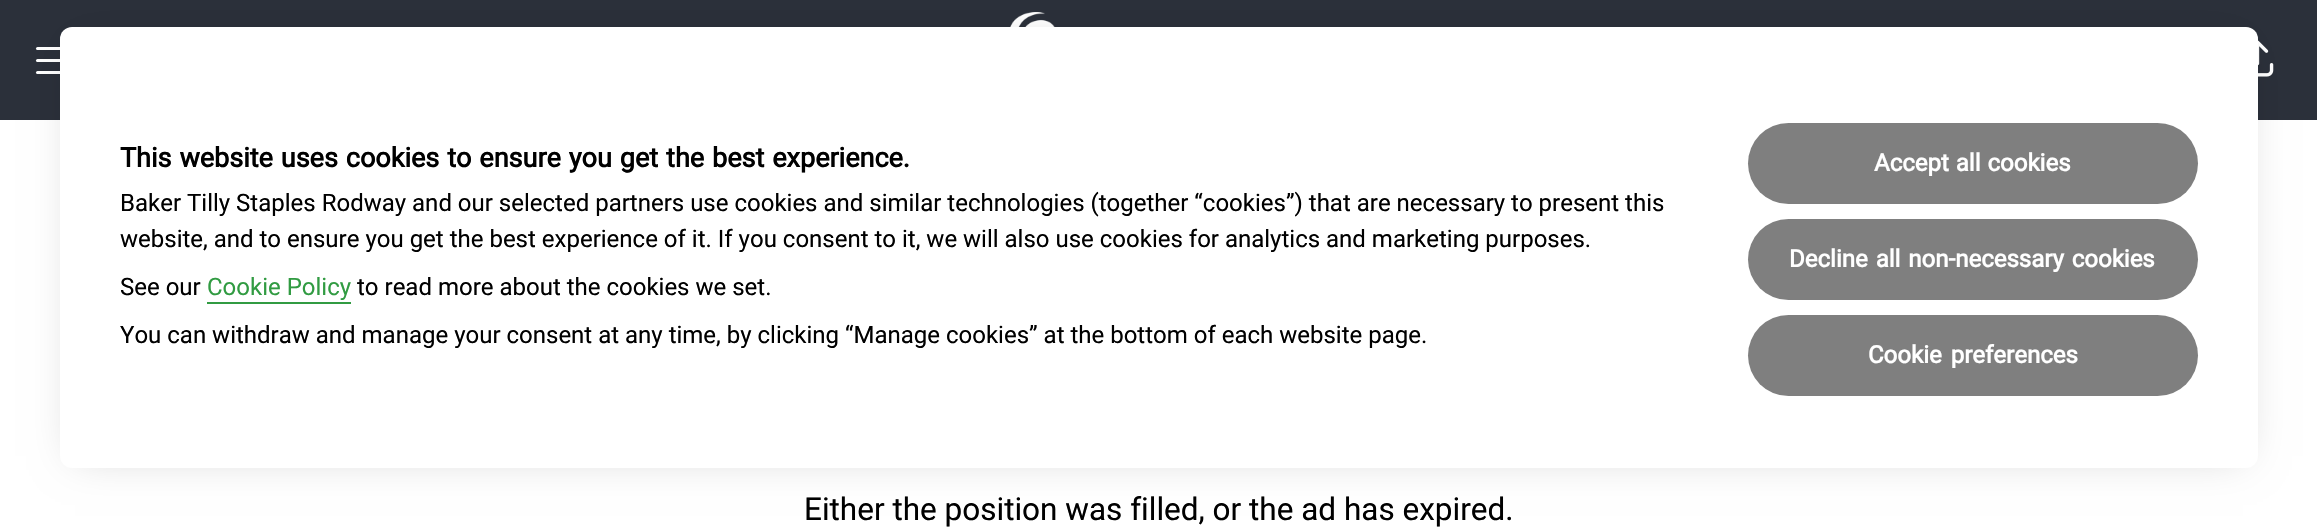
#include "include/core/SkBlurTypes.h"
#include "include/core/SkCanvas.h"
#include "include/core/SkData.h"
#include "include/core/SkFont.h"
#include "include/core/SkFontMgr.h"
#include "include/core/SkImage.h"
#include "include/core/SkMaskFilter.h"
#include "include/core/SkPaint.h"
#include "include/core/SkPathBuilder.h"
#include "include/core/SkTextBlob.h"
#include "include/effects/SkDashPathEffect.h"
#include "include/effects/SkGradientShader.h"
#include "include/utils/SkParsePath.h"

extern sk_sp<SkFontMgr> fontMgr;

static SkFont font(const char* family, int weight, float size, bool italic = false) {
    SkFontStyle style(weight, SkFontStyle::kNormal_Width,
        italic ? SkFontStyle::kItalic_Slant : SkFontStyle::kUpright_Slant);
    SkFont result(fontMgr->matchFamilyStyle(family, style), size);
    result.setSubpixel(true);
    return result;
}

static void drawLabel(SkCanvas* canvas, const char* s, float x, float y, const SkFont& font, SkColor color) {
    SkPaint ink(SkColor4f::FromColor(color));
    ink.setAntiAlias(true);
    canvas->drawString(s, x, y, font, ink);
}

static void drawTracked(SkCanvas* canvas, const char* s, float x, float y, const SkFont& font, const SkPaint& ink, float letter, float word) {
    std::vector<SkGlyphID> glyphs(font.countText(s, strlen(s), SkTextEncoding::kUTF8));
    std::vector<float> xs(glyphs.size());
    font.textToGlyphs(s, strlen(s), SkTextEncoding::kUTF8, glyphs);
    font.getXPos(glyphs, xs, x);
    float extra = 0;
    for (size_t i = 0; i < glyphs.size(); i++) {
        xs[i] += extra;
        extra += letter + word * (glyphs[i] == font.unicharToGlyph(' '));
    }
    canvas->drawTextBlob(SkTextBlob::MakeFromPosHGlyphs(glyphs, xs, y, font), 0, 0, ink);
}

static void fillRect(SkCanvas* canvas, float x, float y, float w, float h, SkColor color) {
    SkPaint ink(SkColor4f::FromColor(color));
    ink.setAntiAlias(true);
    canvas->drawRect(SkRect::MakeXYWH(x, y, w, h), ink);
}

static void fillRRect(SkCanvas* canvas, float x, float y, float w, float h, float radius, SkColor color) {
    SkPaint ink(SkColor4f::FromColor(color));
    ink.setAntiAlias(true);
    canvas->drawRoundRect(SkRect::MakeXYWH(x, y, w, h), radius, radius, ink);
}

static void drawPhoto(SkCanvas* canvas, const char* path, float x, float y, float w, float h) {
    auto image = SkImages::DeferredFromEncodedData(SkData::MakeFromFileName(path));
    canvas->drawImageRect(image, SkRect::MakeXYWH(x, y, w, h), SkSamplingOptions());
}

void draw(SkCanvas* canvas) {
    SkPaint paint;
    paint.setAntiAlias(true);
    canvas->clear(0xFFFFFFFF);
    fillRect(canvas, 0, 0, 2317, 120, 0xFF2B303A);
    drawPhoto(canvas, "assets/img1.png", 1010, 12, 45, 15);
    fillRRect(canvas, 36, 47, 36, 3, 1.5f, 0xFFFFFFFF);
    fillRRect(canvas, 36, 59, 36, 3, 1.5f, 0xFFFFFFFF);
    fillRRect(canvas, 36, 71, 36, 3, 1.5f, 0xFFFFFFFF);
    drawPhoto(canvas, "assets/img2.png", 2258, 40, 16, 37);
    paint.setColor(0x2E000000);
    paint.setMaskFilter(SkMaskFilter::MakeBlur(kNormal_SkBlurStyle, 20));
    canvas->drawRect(SkRect::MakeXYWH(75, 45, 2168, 411), paint);
    paint.setMaskFilter(nullptr);
    fillRRect(canvas, 60, 27, 2198, 441, 12, 0xFFFFFFFF);
    SkFont font1 = font("Roboto", 700, 27);
    paint.setColor(0xFF000000);
    drawTracked(canvas, "This website uses cookies to ensure you get the best experience.", 120, 167, font1, paint, 0, 1.25f);
    SkFont font2 = font("Roboto", 400, 24);
    drawLabel(canvas, "Baker Tilly Staples Rodway and our selected partners use cookies and similar technologies (together “cookies”) that are necessary to present this", 120, 211, font2, 0xFF000000);
    drawLabel(canvas, "website, and to ensure you get the best experience of it. If you consent to it, we will also use cookies for analytics and marketing purposes.", 120, 247, font2, 0xFF000000);
    drawLabel(canvas, "See our", 120, 295, font2, 0xFF000000);
    drawLabel(canvas, "Cookie Policy", 207, 295, font2, 0xFF319B42);
    fillRect(canvas, 207, 302, 144, 2, 0xFF319B42);
    drawLabel(canvas, "to read more about the cookies we set.", 357, 295, font2, 0xFF000000);
    drawLabel(canvas, "You can withdraw and manage your consent at any time, by clicking “Manage cookies” at the bottom of each website page.", 120, 343, font2, 0xFF000000);
    fillRRect(canvas, 1748, 123, 450, 81, 40.5f, 0xFF7F7F7F);
    SkFont font3 = font("Roboto", 700, 24);
    paint.setColor(0xFFFFFFFF);
    drawTracked(canvas, "Accept all cookies", 1874, 171, font3, paint, 0, 1);
    fillRRect(canvas, 1748, 219, 450, 81, 40.5f, 0xFF7F7F7F);
    drawTracked(canvas, "Decline all non-necessary cookies", 1789, 267, font3, paint, 0, 2);
    fillRRect(canvas, 1748, 315, 450, 81, 40.5f, 0xFF7F7F7F);
    drawTracked(canvas, "Cookie preferences", 1868, 363, font3, paint, 0, 3);
    SkFont font4 = font("Roboto", 400, 31.5f);
    drawLabel(canvas, "Either the position was filled, or the ad has expired.", 804, 520, font4, 0xFF000000);
}
